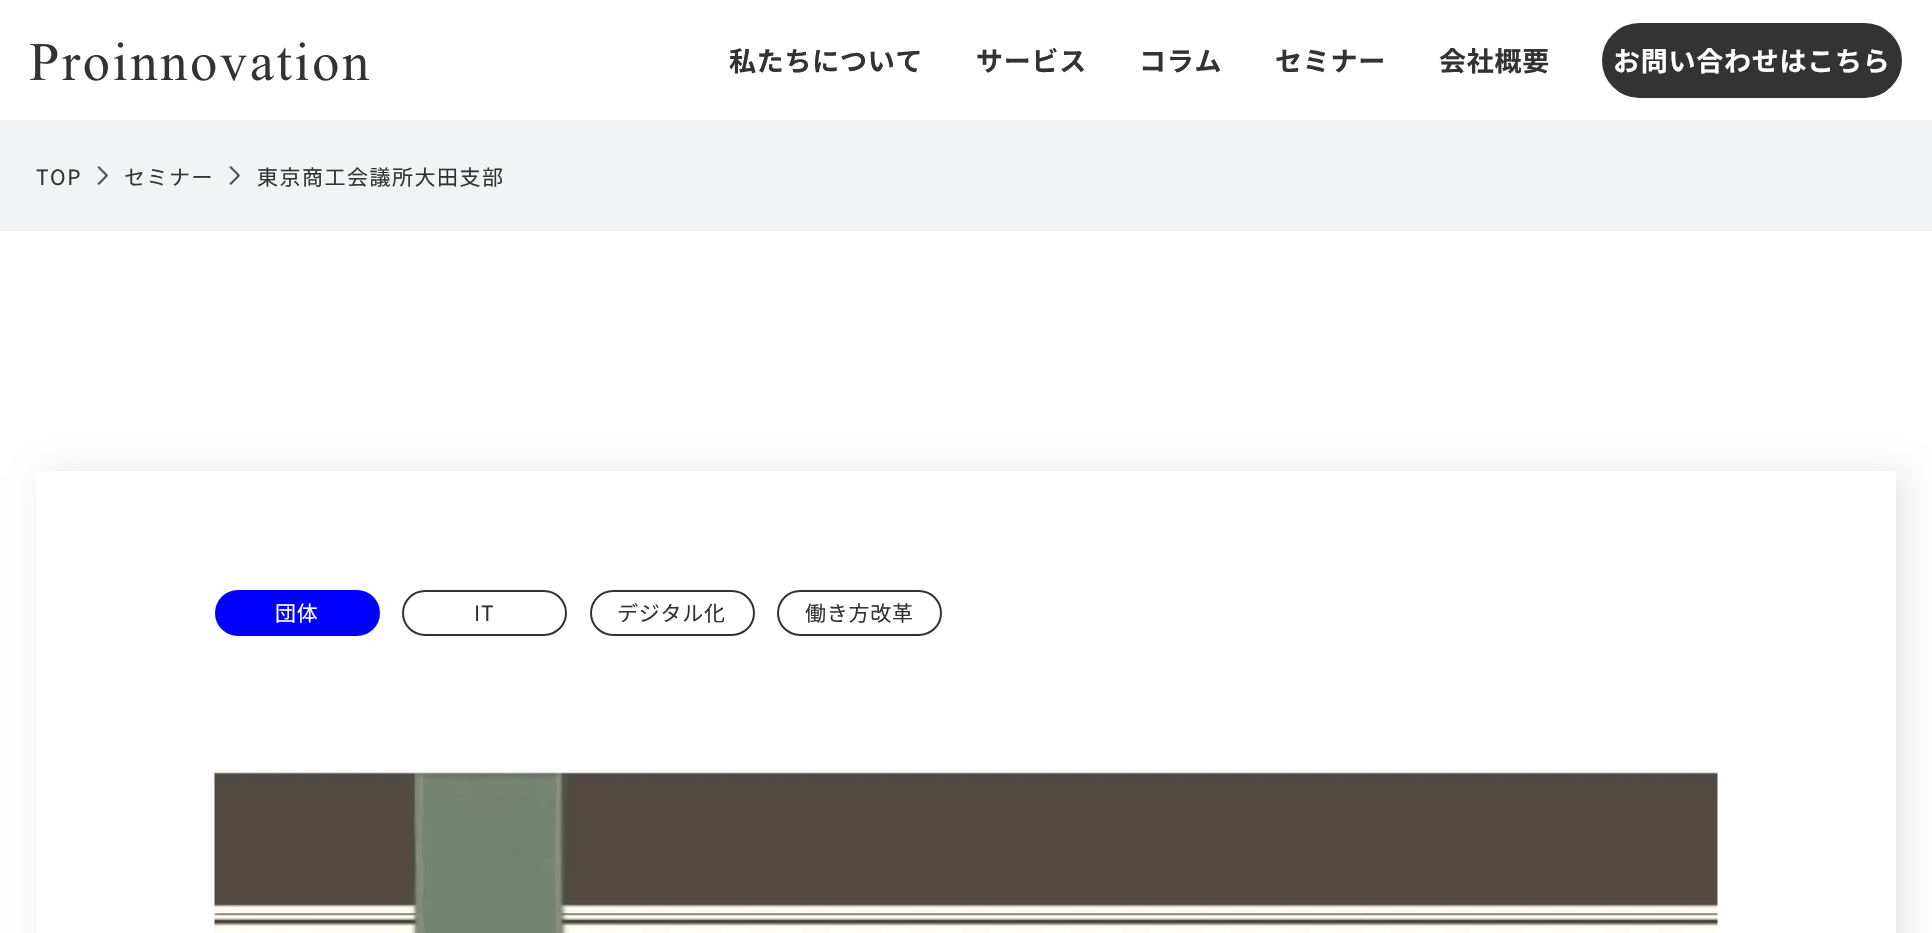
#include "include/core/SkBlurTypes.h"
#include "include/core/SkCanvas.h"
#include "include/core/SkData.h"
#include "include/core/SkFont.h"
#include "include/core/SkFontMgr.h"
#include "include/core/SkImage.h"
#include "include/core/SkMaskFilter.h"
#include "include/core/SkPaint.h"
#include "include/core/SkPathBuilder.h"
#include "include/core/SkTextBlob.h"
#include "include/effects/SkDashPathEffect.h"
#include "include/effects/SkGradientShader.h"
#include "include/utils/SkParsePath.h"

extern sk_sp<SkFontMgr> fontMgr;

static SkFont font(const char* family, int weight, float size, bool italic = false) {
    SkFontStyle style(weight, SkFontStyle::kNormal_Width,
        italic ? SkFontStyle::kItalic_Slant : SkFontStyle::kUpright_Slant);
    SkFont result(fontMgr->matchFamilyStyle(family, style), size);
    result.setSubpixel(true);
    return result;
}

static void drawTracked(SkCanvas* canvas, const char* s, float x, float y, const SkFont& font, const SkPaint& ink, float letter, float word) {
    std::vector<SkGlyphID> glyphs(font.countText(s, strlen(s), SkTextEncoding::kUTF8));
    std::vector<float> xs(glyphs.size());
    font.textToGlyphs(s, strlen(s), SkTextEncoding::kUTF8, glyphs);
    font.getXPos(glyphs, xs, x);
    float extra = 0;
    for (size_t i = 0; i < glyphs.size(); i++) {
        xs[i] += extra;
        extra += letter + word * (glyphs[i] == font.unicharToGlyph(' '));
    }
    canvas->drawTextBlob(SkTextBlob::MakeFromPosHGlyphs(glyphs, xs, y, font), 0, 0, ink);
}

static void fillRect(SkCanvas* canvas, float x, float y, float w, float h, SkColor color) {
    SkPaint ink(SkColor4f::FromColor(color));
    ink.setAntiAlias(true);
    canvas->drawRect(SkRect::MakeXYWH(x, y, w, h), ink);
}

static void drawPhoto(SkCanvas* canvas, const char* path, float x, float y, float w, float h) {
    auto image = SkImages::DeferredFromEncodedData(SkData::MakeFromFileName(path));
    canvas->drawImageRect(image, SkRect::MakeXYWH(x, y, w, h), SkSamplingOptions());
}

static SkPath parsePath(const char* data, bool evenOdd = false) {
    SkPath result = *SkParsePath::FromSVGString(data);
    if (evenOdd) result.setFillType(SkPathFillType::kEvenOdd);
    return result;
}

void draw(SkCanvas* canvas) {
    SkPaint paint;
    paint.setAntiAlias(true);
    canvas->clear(0xFFFFFFFF);
    drawPhoto(canvas, "assets/img1.png", 30, 42, 339, 39);
    SkFont font1 = font("Noto Sans JP", 700, 27);
    paint.setColor(0xFF333333);
    drawTracked(canvas, "私たちについて", 729, 71, font1, paint, 0.75f, 0);
    drawTracked(canvas, "サービス", 976, 71, font1, paint, 0.75f, 0);
    drawTracked(canvas, "コラム", 1139, 71, font1, paint, 0.75f, 0);
    drawTracked(canvas, "セミナー", 1275, 71, font1, paint, 0.75f, 0);
    drawTracked(canvas, "会社概要", 1439, 71, font1, paint, 0.75f, 0);
    canvas->drawRoundRect(SkRect::MakeXYWH(1603.5f, 24.5f, 297, 72), 36, 36, paint);
    paint.setStroke(true);
    paint.setStrokeWidth(3);
    canvas->drawRoundRect(SkRect::MakeXYWH(1603.5f, 24.5f, 297, 72), 36, 36, paint);
    paint.setStroke(false);
    paint.setColor(0xFFFFFFFF);
    drawTracked(canvas, "お問い合わせはこちら", 1613, 71, font1, paint, 0.75f, 0);
    fillRect(canvas, 0, 120, 1932, 111, 0xFFF1F3F5);
    SkFont font2 = font("Noto Sans JP", 400, 21);
    paint.setColor(0xFF333333);
    drawTracked(canvas, "TOP", 36, 185, font2, paint, 1.5f, 0);
    drawPhoto(canvas, "assets/img2.png", 97, 166, 11, 19);
    drawTracked(canvas, "セミナー", 124, 185, font2, paint, 1.5f, 0);
    drawPhoto(canvas, "assets/img2.png", 229, 166, 11, 19);
    drawTracked(canvas, "東京商工会議所大田支部", 257, 185, font2, paint, 1.5f, 0);
    canvas->save();
    canvas->clipPath(parsePath("M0 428H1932V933H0ZM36 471H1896V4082H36Z", true), true);
    paint.setColor(0x1A000000);
    paint.setMaskFilter(SkMaskFilter::MakeBlur(kNormal_SkBlurStyle, 15));
    canvas->drawRect(SkRect::MakeXYWH(45, 474, 1860, 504), paint);
    paint.setMaskFilter(nullptr);
    canvas->restore();
    paint.setColor(0xFF0000FF);
    canvas->drawRoundRect(SkRect::MakeXYWH(216, 591, 163, 44), 22, 22, paint);
    paint.setStroke(true);
    paint.setStrokeWidth(2);
    canvas->drawRoundRect(SkRect::MakeXYWH(216, 591, 163, 44), 22, 22, paint);
    paint.setStroke(false);
    paint.setColor(0xFFFFFFFF);
    drawTracked(canvas, "団体", 275, 621, font2, paint, 0.75f, 0);
    paint.setStroke(true);
    paint.setColor(0xFF333333);
    canvas->drawRoundRect(SkRect::MakeXYWH(403, 591, 163, 44), 22, 22, paint);
    paint.setStroke(false);
    drawTracked(canvas, "IT", 474, 621, font2, paint, 0.75f, 0);
    paint.setStroke(true);
    canvas->drawRoundRect(SkRect::MakeXYWH(591, 591, 163, 44), 22, 22, paint);
    paint.setStroke(false);
    drawTracked(canvas, "デジタル化", 617, 621, font2, paint, 0.75f, 0);
    paint.setStroke(true);
    canvas->drawRoundRect(SkRect::MakeXYWH(778, 591, 163, 44), 22, 22, paint);
    paint.setStroke(false);
    drawTracked(canvas, "働き方改革", 805, 621, font2, paint, 0.75f, 0);
    drawPhoto(canvas, "assets/img3.png", 214, 766, 1504, 167);
}
